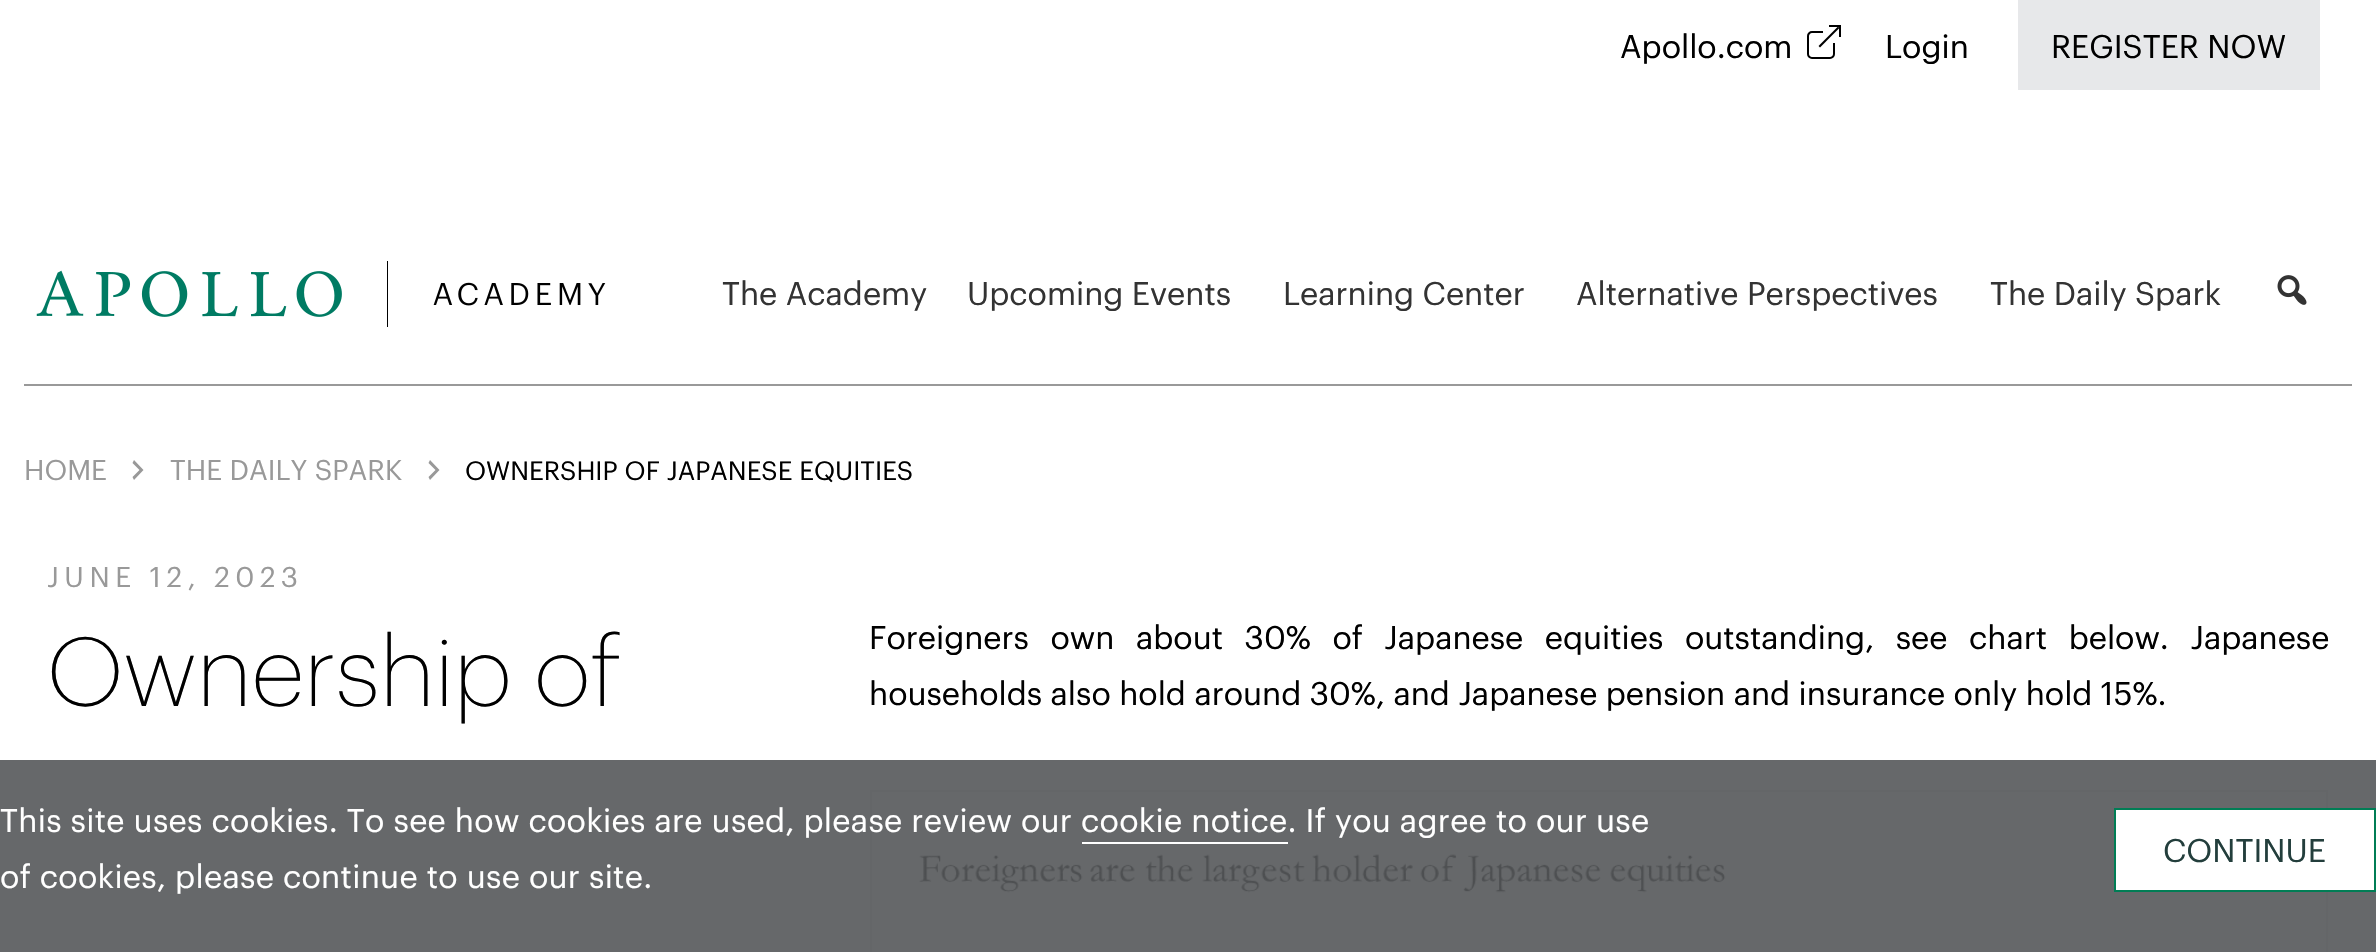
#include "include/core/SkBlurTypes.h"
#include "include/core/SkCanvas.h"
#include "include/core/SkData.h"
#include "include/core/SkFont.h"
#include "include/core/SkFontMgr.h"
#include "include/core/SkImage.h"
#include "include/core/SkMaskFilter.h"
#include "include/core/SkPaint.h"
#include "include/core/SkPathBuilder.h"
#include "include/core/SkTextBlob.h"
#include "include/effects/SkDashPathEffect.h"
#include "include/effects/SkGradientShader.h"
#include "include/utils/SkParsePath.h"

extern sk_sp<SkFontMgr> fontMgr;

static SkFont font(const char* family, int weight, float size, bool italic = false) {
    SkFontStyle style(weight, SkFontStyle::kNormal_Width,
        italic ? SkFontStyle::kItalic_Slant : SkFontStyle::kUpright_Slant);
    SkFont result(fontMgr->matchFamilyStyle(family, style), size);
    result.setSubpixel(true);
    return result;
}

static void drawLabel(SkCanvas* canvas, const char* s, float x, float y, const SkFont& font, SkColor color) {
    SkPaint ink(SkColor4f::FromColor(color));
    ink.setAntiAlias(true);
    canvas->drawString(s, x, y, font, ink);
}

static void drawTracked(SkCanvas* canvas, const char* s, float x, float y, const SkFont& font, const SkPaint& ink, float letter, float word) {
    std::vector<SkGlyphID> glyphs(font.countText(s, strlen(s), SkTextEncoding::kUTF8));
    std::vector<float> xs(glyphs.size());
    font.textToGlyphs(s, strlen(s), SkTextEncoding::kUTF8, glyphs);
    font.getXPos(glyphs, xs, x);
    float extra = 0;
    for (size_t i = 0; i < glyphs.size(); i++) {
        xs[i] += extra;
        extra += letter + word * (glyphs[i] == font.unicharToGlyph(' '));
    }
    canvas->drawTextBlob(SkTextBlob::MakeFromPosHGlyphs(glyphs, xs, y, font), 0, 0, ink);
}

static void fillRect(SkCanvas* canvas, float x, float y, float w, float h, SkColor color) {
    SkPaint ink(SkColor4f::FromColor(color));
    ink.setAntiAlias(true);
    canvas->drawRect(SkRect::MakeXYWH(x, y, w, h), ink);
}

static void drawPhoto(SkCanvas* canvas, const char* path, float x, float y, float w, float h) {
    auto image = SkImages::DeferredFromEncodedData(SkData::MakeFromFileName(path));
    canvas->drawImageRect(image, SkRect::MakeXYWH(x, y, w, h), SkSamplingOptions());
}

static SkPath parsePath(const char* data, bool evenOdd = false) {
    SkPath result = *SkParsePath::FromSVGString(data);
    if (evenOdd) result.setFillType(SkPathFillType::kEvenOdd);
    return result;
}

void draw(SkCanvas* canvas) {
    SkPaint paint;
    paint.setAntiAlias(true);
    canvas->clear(0xFFFFFFFF);
    SkFont font1 = font("Graphik", 400, 32);
    drawLabel(canvas, "Apollo.com", 1620, 58, font1, 0xFF000000);
    drawPhoto(canvas, "assets/img1.png", 1807, 25, 34, 34);
    drawLabel(canvas, "Login", 1885, 58, font1, 0xFF000000);
    fillRect(canvas, 2018, 0, 302, 90, 0xFFE7E8EA);
    drawLabel(canvas, "REGISTER NOW", 2051, 58, font1, 0xFF000000);
    fillRect(canvas, 24, 384, 2328, 2, 0xFF999999);
    drawPhoto(canvas, "assets/img2.png", 36, 261, 570, 66);
    drawLabel(canvas, "The Academy", 722, 305, font1, 0xFF333333);
    drawLabel(canvas, "Upcoming Events", 967, 305, font1, 0xFF333333);
    drawLabel(canvas, "Learning Center", 1283, 305, font1, 0xFF333333);
    drawLabel(canvas, "Alternative Perspectives", 1576, 305, font1, 0xFF333333);
    drawLabel(canvas, "The Daily Spark", 1990, 305, font1, 0xFF333333);
    drawPhoto(canvas, "assets/img3.png", 2277, 275, 30, 30);
    SkFont font2 = font("Graphik", 400, 28);
    drawLabel(canvas, "HOME", 24, 480, font2, 0xFF999999);
    paint.setColor(0xFF999999);
    canvas->drawPath(parsePath("M132.5 477L139.5 470L132.5 463L134 460L143.5 470L134 480Z"), paint);
    drawLabel(canvas, "THE DAILY SPARK", 170, 480, font2, 0xFF999999);
    canvas->drawPath(parsePath("M428.5 477L435.5 470L428.5 463L430 460L439.5 470L430 480Z"), paint);
    SkFont font3 = font("Graphik", 400, 26);
    drawLabel(canvas, "OWNERSHIP OF JAPANESE EQUITIES", 465, 480, font3, 0xFF000000);
    drawTracked(canvas, "JUNE 12, 2023", 47, 587, font2, paint, 5.6f, 0);
    SkFont font4 = font("Graphik", 200, 96);
    drawLabel(canvas, "Ownership of", 47, 706, font4, 0xFF000000);
    paint.setColor(0xFF000000);
    drawTracked(canvas, "Foreigners own about 30% of Japanese equities outstanding, see chart below. Japanese", 869, 649, font1, paint, 0, 13.1f);
    drawLabel(canvas, "households also hold around 30%, and Japanese pension and insurance only hold 15%.", 869, 705, font1, 0xFF000000);
    paint.setStroke(true);
    paint.setStrokeWidth(2);
    paint.setColor(0xFFE7E8EA);
    canvas->drawRect(SkRect::MakeXYWH(871, 791, 1456, 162), paint);
    drawPhoto(canvas, "assets/img4.png", 919, 828, 1362, 65);
    fillRect(canvas, 0, 760, 2376, 192, 0xE655585A);
    paint.setStroke(false);
    paint.setColor(0xFFFFFFFF);
    drawTracked(canvas, "This site uses cookies. To see how cookies are used, please review our cookie notice. If you agree to our use", 0, 832, font1, paint, 0.3f, 0);
    fillRect(canvas, 1082, 842, 206, 2, 0xFFFFFFFF);
    drawTracked(canvas, "of cookies, please continue to use our site.", 0, 888, font1, paint, 0.3f, 0);
    canvas->drawRect(SkRect::MakeXYWH(2115, 809, 260, 82), paint);
    paint.setStroke(true);
    paint.setColor(0xFF007D55);
    canvas->drawRect(SkRect::MakeXYWH(2115, 809, 260, 82), paint);
    drawLabel(canvas, "CONTINUE", 2163, 862, font1, 0xFF233E3C);
}
